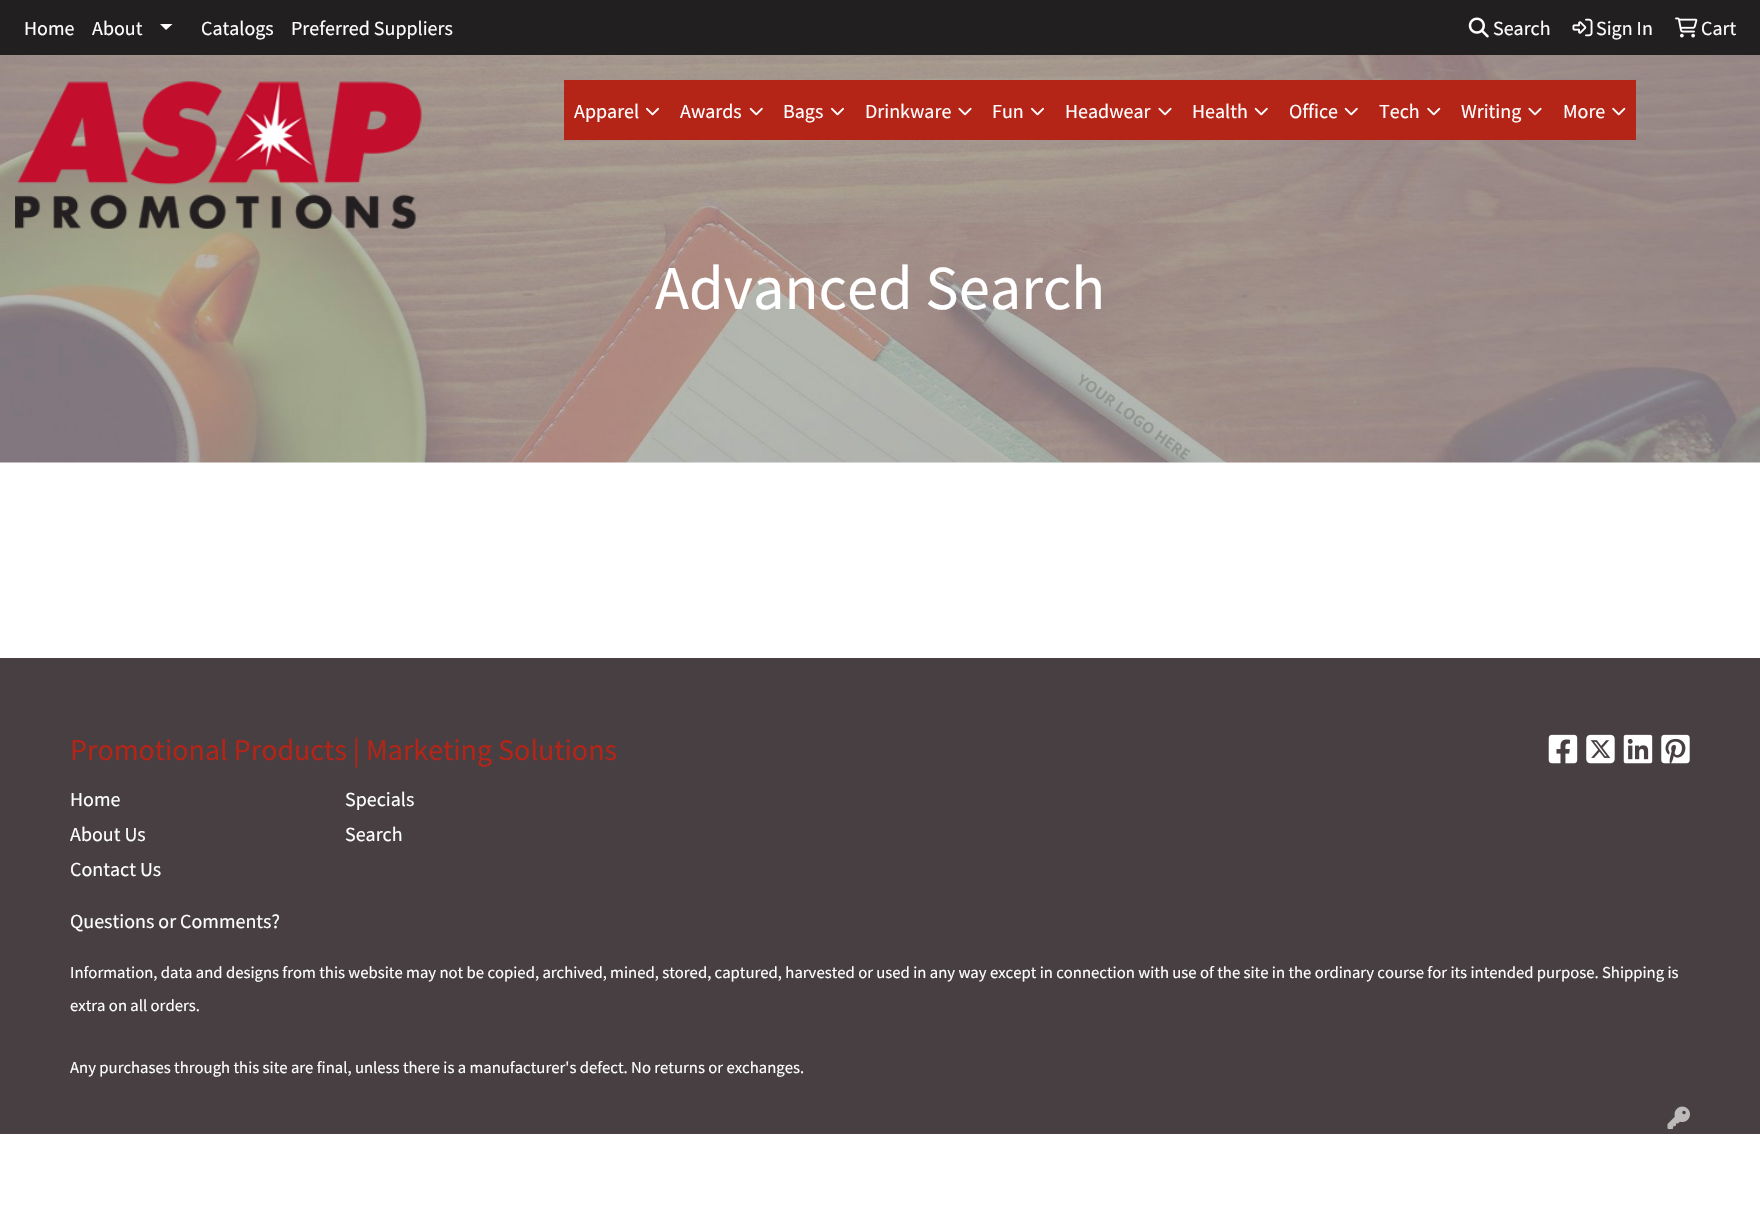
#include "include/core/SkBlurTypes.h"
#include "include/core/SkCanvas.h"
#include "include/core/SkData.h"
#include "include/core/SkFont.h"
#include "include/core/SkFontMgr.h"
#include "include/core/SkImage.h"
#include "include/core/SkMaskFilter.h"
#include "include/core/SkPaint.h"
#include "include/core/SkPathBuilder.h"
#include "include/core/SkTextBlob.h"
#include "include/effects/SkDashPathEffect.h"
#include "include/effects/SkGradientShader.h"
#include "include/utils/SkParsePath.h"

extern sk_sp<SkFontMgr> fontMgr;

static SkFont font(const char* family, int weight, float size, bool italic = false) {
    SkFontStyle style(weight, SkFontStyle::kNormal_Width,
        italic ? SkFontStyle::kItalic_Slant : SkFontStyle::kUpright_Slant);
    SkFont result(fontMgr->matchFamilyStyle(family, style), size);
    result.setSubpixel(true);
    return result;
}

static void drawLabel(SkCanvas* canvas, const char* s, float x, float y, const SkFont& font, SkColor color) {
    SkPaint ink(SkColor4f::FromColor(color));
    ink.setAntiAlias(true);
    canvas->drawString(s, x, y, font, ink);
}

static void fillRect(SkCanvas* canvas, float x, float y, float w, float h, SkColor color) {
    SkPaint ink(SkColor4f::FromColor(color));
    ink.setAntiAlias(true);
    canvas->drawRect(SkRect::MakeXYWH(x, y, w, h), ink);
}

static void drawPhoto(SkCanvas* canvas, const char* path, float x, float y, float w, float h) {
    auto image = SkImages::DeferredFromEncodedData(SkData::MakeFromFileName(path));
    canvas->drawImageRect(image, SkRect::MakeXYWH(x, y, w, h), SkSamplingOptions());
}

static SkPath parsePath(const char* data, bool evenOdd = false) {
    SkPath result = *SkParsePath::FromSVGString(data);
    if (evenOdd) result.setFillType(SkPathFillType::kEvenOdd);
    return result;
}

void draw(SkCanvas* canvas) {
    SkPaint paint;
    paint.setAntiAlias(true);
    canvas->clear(0xFFFFFFFF);
    fillRect(canvas, 0, 0, 1760, 55, 0xFF221F20);
    SkFont font1 = font("Source Sans Pro", 400, 20);
    drawLabel(canvas, "Home", 24, 35, font1, 0xFFFFFFFF);
    drawLabel(canvas, "About", 92, 35, font1, 0xFFFFFFFF);
    paint.setColor(0xFFFFFFFF);
    canvas->drawPath(parsePath("M160 24H172.5L166 30Z"), paint);
    drawLabel(canvas, "Catalogs", 201, 35, font1, 0xFFFFFFFF);
    drawLabel(canvas, "Preferred Suppliers", 291, 35, font1, 0xFFFFFFFF);
    drawPhoto(canvas, "assets/img1.png", 1468, 17, 21, 21);
    drawLabel(canvas, "Search", 1493, 35, font1, 0xFFFFFFFF);
    drawPhoto(canvas, "assets/img2.png", 1572, 18, 21, 19);
    drawLabel(canvas, "Sign In", 1596, 35, font1, 0xFFFFFFFF);
    drawPhoto(canvas, "assets/img3.png", 1675, 17, 23, 21);
    drawLabel(canvas, "Cart", 1701, 35, font1, 0xFFFFFFFF);
    drawPhoto(canvas, "assets/img9.png", 0, 55, 1760, 408);
    drawPhoto(canvas, "assets/img4.png", 15, 81, 407, 148);
    fillRect(canvas, 564, 80, 1072, 60, 0xFFB42417);
    drawLabel(canvas, "Apparel", 574, 118, font1, 0xFFFFFFFF);
    drawPhoto(canvas, "assets/img5.png", 646, 107, 13, 9);
    drawLabel(canvas, "Awards", 680, 118, font1, 0xFFFFFFFF);
    drawPhoto(canvas, "assets/img6.png", 749, 107, 14, 9);
    drawLabel(canvas, "Bags", 783, 118, font1, 0xFFFFFFFF);
    drawPhoto(canvas, "assets/img5.png", 831, 107, 13, 9);
    drawLabel(canvas, "Drinkware", 865, 118, font1, 0xFFFFFFFF);
    drawPhoto(canvas, "assets/img7.png", 958, 107, 14, 9);
    drawLabel(canvas, "Fun", 992, 118, font1, 0xFFFFFFFF);
    drawPhoto(canvas, "assets/img5.png", 1031, 107, 13, 9);
    drawLabel(canvas, "Headwear", 1065, 118, font1, 0xFFFFFFFF);
    drawPhoto(canvas, "assets/img7.png", 1158, 107, 14, 9);
    drawLabel(canvas, "Health", 1192, 118, font1, 0xFFFFFFFF);
    drawPhoto(canvas, "assets/img6.png", 1254, 107, 14, 9);
    drawLabel(canvas, "Office", 1289, 118, font1, 0xFFFFFFFF);
    drawPhoto(canvas, "assets/img6.png", 1344, 107, 14, 9);
    drawLabel(canvas, "Tech", 1379, 118, font1, 0xFFFFFFFF);
    drawPhoto(canvas, "assets/img8.png", 1427, 107, 14, 9);
    drawLabel(canvas, "Writing", 1461, 118, font1, 0xFFFFFFFF);
    drawPhoto(canvas, "assets/img7.png", 1528, 107, 14, 9);
    drawLabel(canvas, "More", 1563, 118, font1, 0xFFFFFFFF);
    drawPhoto(canvas, "assets/img8.png", 1612, 107, 14, 9);
    SkFont font2 = font("Source Sans Pro", 400, 62.5f);
    drawLabel(canvas, "Advanced Search", 655, 309, font2, 0xFFFFFFFF);
    fillRect(canvas, 0, 658, 1760, 476, 0xFF473F42);
    SkFont font3 = font("Source Sans Pro", 400, 30);
    drawLabel(canvas, "Promotional Products | Marketing Solutions", 70, 760, font3, 0xFFB42417);
    drawLabel(canvas, "Home", 70, 806, font1, 0xFFFFFFFF);
    drawLabel(canvas, "About Us", 70, 841, font1, 0xFFFFFFFF);
    drawLabel(canvas, "Contact Us", 70, 876, font1, 0xFFFFFFFF);
    drawLabel(canvas, "Specials", 345, 806, font1, 0xFFFFFFFF);
    drawLabel(canvas, "Search", 345, 841, font1, 0xFFFFFFFF);
    drawLabel(canvas, "Questions or Comments?", 70, 928, font1, 0xFFFFFFFF);
    drawPhoto(canvas, "assets/img10.png", 1548, 734, 30, 30);
    drawPhoto(canvas, "assets/img11.png", 1586, 734, 29, 30);
    drawPhoto(canvas, "assets/img12.png", 1623, 734, 30, 30);
    drawPhoto(canvas, "assets/img13.png", 1661, 734, 29, 30);
    SkFont font4 = font("Source Sans Pro", 400, 16.67f);
    drawLabel(canvas, "Information, data and designs from this website may not be copied, archived, mined, stored, captured, harvested or used in any way except in connection with use of the site in the ordinary course for its intended purpose. Shipping is", 70, 978, font4, 0xFFFFFFFF);
    drawLabel(canvas, "extra on all orders.", 70, 1011, font4, 0xFFFFFFFF);
    drawLabel(canvas, "Any purchases through this site are final, unless there is a manufacturer's defect. No returns or exchanges.", 70, 1073, font4, 0xFFFFFFFF);
    drawPhoto(canvas, "assets/img14.png", 1667, 1106, 23, 24);
}
